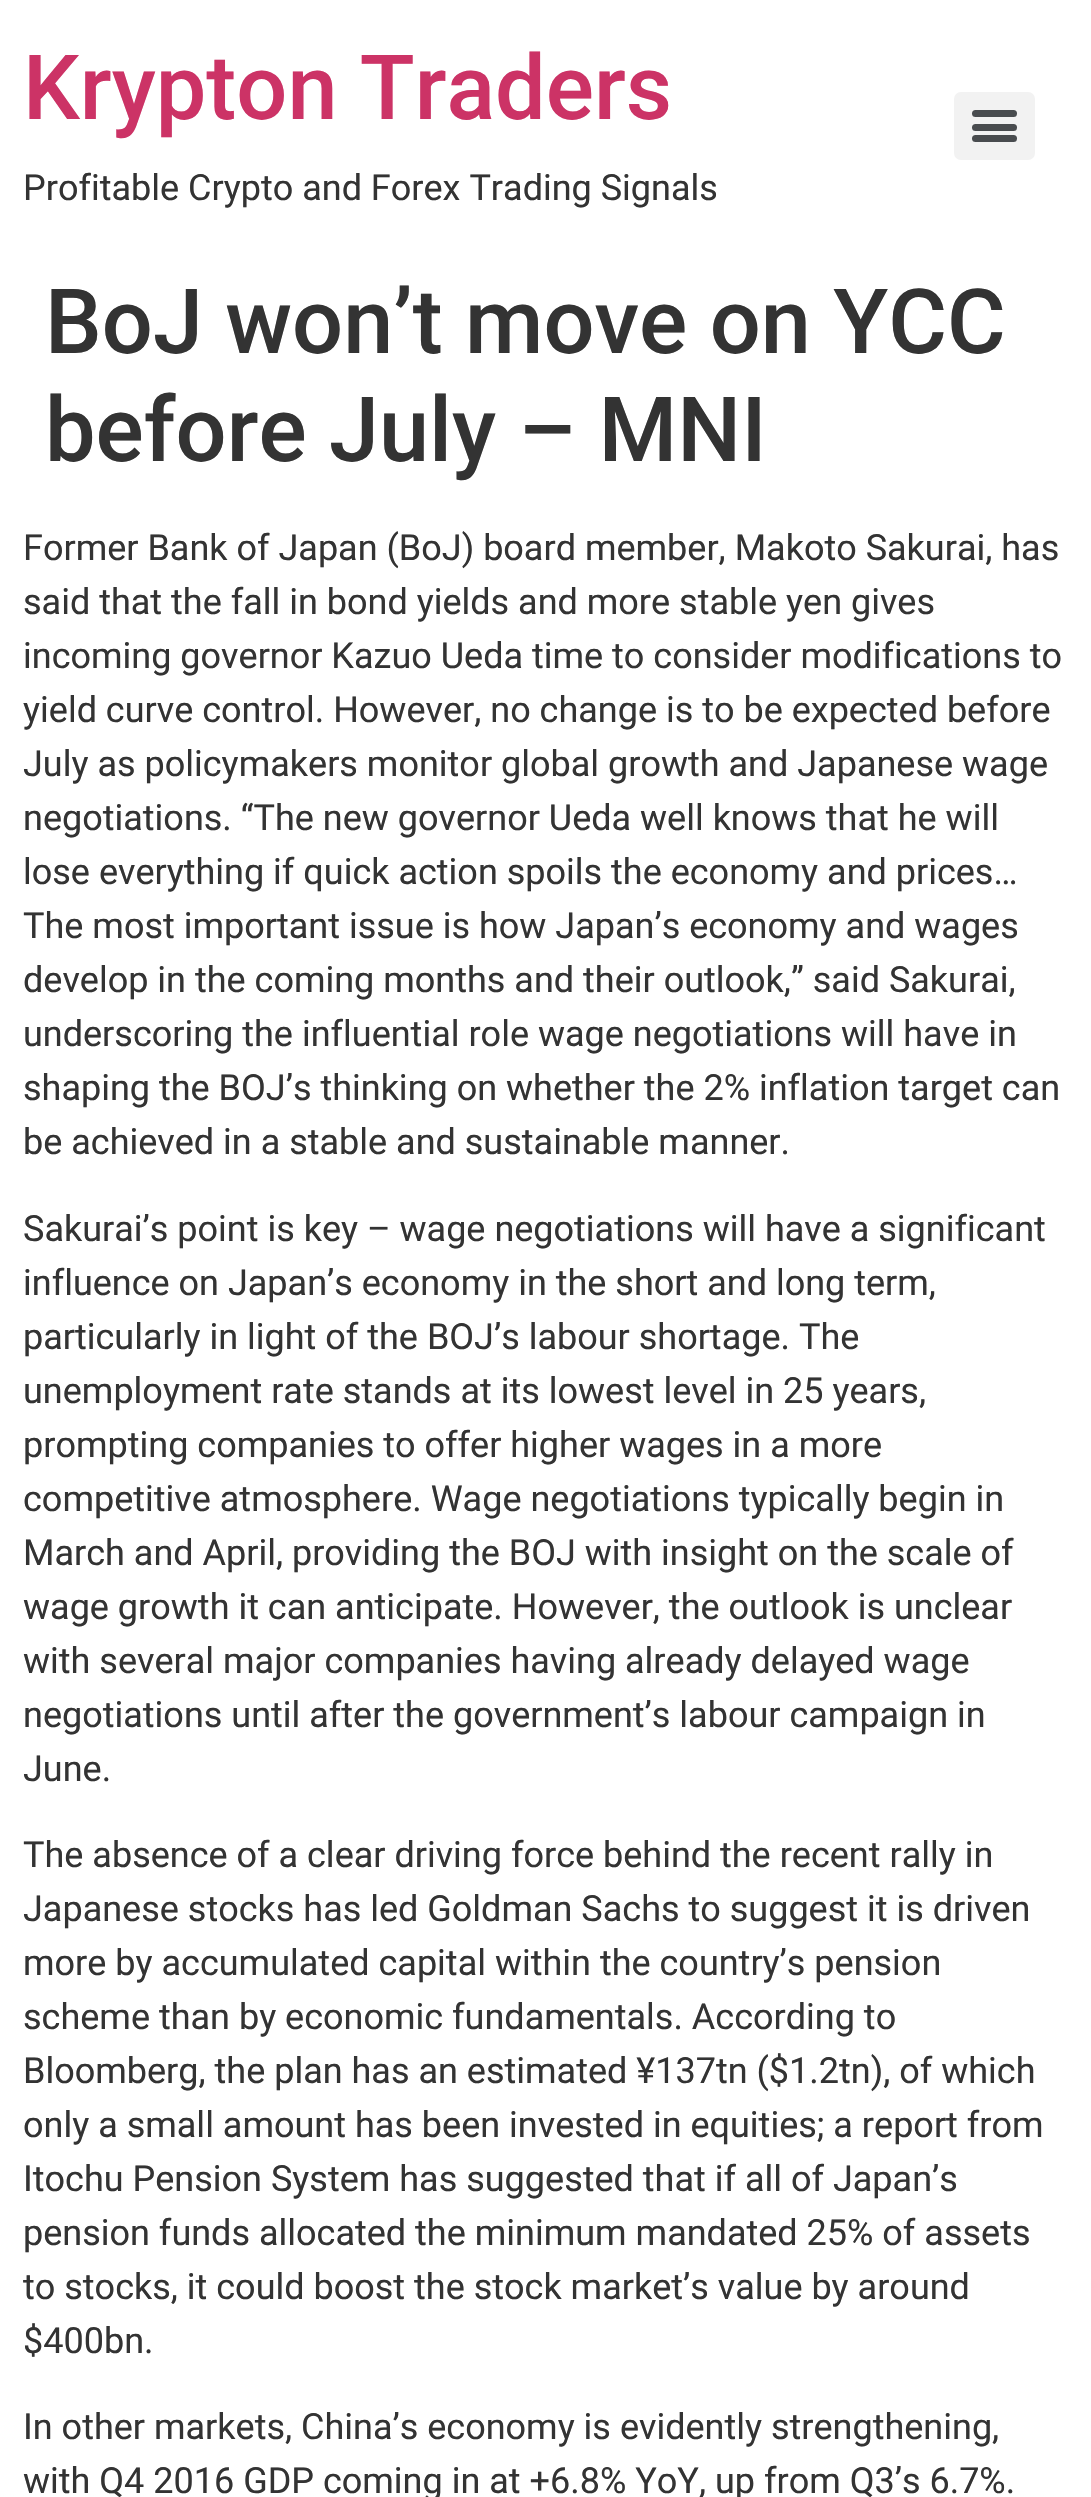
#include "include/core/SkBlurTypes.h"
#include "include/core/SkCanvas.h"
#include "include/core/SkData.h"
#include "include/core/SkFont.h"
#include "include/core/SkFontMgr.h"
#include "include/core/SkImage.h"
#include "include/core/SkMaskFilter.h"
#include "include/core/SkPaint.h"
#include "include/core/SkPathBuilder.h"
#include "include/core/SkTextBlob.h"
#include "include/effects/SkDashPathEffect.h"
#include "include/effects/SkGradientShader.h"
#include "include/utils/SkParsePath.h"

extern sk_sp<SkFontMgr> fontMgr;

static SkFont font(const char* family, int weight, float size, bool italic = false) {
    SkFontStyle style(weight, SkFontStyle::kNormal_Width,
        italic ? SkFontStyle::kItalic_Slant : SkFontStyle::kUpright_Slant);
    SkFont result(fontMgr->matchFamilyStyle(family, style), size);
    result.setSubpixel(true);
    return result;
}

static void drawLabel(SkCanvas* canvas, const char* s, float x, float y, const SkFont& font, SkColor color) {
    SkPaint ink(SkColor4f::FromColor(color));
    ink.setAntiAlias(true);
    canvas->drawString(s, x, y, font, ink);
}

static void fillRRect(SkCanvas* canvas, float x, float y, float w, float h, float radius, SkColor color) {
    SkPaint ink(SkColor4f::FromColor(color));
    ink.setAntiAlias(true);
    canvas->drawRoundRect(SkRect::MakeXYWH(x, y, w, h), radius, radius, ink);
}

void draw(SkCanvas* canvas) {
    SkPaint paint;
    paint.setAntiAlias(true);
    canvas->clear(0xFFFFFFFF);
    SkFont font1 = font("Roboto", 500, 90);
    drawLabel(canvas, "Krypton Traders", 23, 119, font1, 0xFFCC3366);
    SkFont font2 = font("Roboto", 400, 36);
    drawLabel(canvas, "Profitable Crypto and Forex Trading Signals", 23, 200, font2, 0xFF333333);
    fillRRect(canvas, 954, 92, 81, 68, 7, 0xFFF2F2F2);
    fillRRect(canvas, 972, 124, 45, 7, 3.5f, 0xFF494C4F);
    fillRRect(canvas, 972, 110, 45, 7, 3.5f, 0xFF494C4F);
    fillRRect(canvas, 972, 135, 45, 7, 3.5f, 0xFF494C4F);
    drawLabel(canvas, "BoJ won’t move on YCC", 45, 353, font1, 0xFF333333);
    drawLabel(canvas, "before July – MNI", 45, 461, font1, 0xFF333333);
    drawLabel(canvas, "Former Bank of Japan (BoJ) board member, Makoto Sakurai, has", 23, 560, font2, 0xFF333333);
    drawLabel(canvas, "said that the fall in bond yields and more stable yen gives", 23, 614, font2, 0xFF333333);
    drawLabel(canvas, "incoming governor Kazuo Ueda time to consider modifications to", 23, 668, font2, 0xFF333333);
    drawLabel(canvas, "yield curve control. However, no change is to be expected before", 23, 722, font2, 0xFF333333);
    drawLabel(canvas, "July as policymakers monitor global growth and Japanese wage", 23, 776, font2, 0xFF333333);
    drawLabel(canvas, "negotiations. “The new governor Ueda well knows that he will", 23, 830, font2, 0xFF333333);
    drawLabel(canvas, "lose everything if quick action spoils the economy and prices…", 23, 884, font2, 0xFF333333);
    drawLabel(canvas, "The most important issue is how Japan’s economy and wages", 23, 938, font2, 0xFF333333);
    drawLabel(canvas, "develop in the coming months and their outlook,” said Sakurai,", 23, 992, font2, 0xFF333333);
    drawLabel(canvas, "underscoring the influential role wage negotiations will have in", 23, 1046, font2, 0xFF333333);
    drawLabel(canvas, "shaping the BOJ’s thinking on whether the 2% inflation target can", 23, 1100, font2, 0xFF333333);
    drawLabel(canvas, "be achieved in a stable and sustainable manner.", 23, 1154, font2, 0xFF333333);
    drawLabel(canvas, "Sakurai’s point is key – wage negotiations will have a significant", 23, 1241, font2, 0xFF333333);
    drawLabel(canvas, "influence on Japan’s economy in the short and long term,", 23, 1295, font2, 0xFF333333);
    drawLabel(canvas, "particularly in light of the BOJ’s labour shortage. The", 23, 1349, font2, 0xFF333333);
    drawLabel(canvas, "unemployment rate stands at its lowest level in 25 years,", 23, 1403, font2, 0xFF333333);
    drawLabel(canvas, "prompting companies to offer higher wages in a more", 23, 1457, font2, 0xFF333333);
    drawLabel(canvas, "competitive atmosphere. Wage negotiations typically begin in", 23, 1511, font2, 0xFF333333);
    drawLabel(canvas, "March and April, providing the BOJ with insight on the scale of", 23, 1565, font2, 0xFF333333);
    drawLabel(canvas, "wage growth it can anticipate. However, the outlook is unclear", 23, 1619, font2, 0xFF333333);
    drawLabel(canvas, "with several major companies having already delayed wage", 23, 1673, font2, 0xFF333333);
    drawLabel(canvas, "negotiations until after the government’s labour campaign in", 23, 1727, font2, 0xFF333333);
    drawLabel(canvas, "June.", 23, 1781, font2, 0xFF333333);
    drawLabel(canvas, "The absence of a clear driving force behind the recent rally in", 23, 1867, font2, 0xFF333333);
    drawLabel(canvas, "Japanese stocks has led Goldman Sachs to suggest it is driven", 23, 1921, font2, 0xFF333333);
    drawLabel(canvas, "more by accumulated capital within the country’s pension", 23, 1975, font2, 0xFF333333);
    drawLabel(canvas, "scheme than by economic fundamentals. According to", 23, 2029, font2, 0xFF333333);
    drawLabel(canvas, "Bloomberg, the plan has an estimated ¥137tn ($1.2tn), of which", 23, 2083, font2, 0xFF333333);
    drawLabel(canvas, "only a small amount has been invested in equities; a report from", 23, 2137, font2, 0xFF333333);
    drawLabel(canvas, "Itochu Pension System has suggested that if all of Japan’s", 23, 2191, font2, 0xFF333333);
    drawLabel(canvas, "pension funds allocated the minimum mandated 25% of assets", 23, 2245, font2, 0xFF333333);
    drawLabel(canvas, "to stocks, it could boost the stock market’s value by around", 23, 2299, font2, 0xFF333333);
    drawLabel(canvas, "$400bn.", 23, 2353, font2, 0xFF333333);
    drawLabel(canvas, "In other markets, China’s economy is evidently strengthening,", 23, 2439, font2, 0xFF333333);
    drawLabel(canvas, "with Q4 2016 GDP coming in at +6.8% YoY, up from Q3’s 6.7%.", 23, 2493, font2, 0xFF333333);
}
